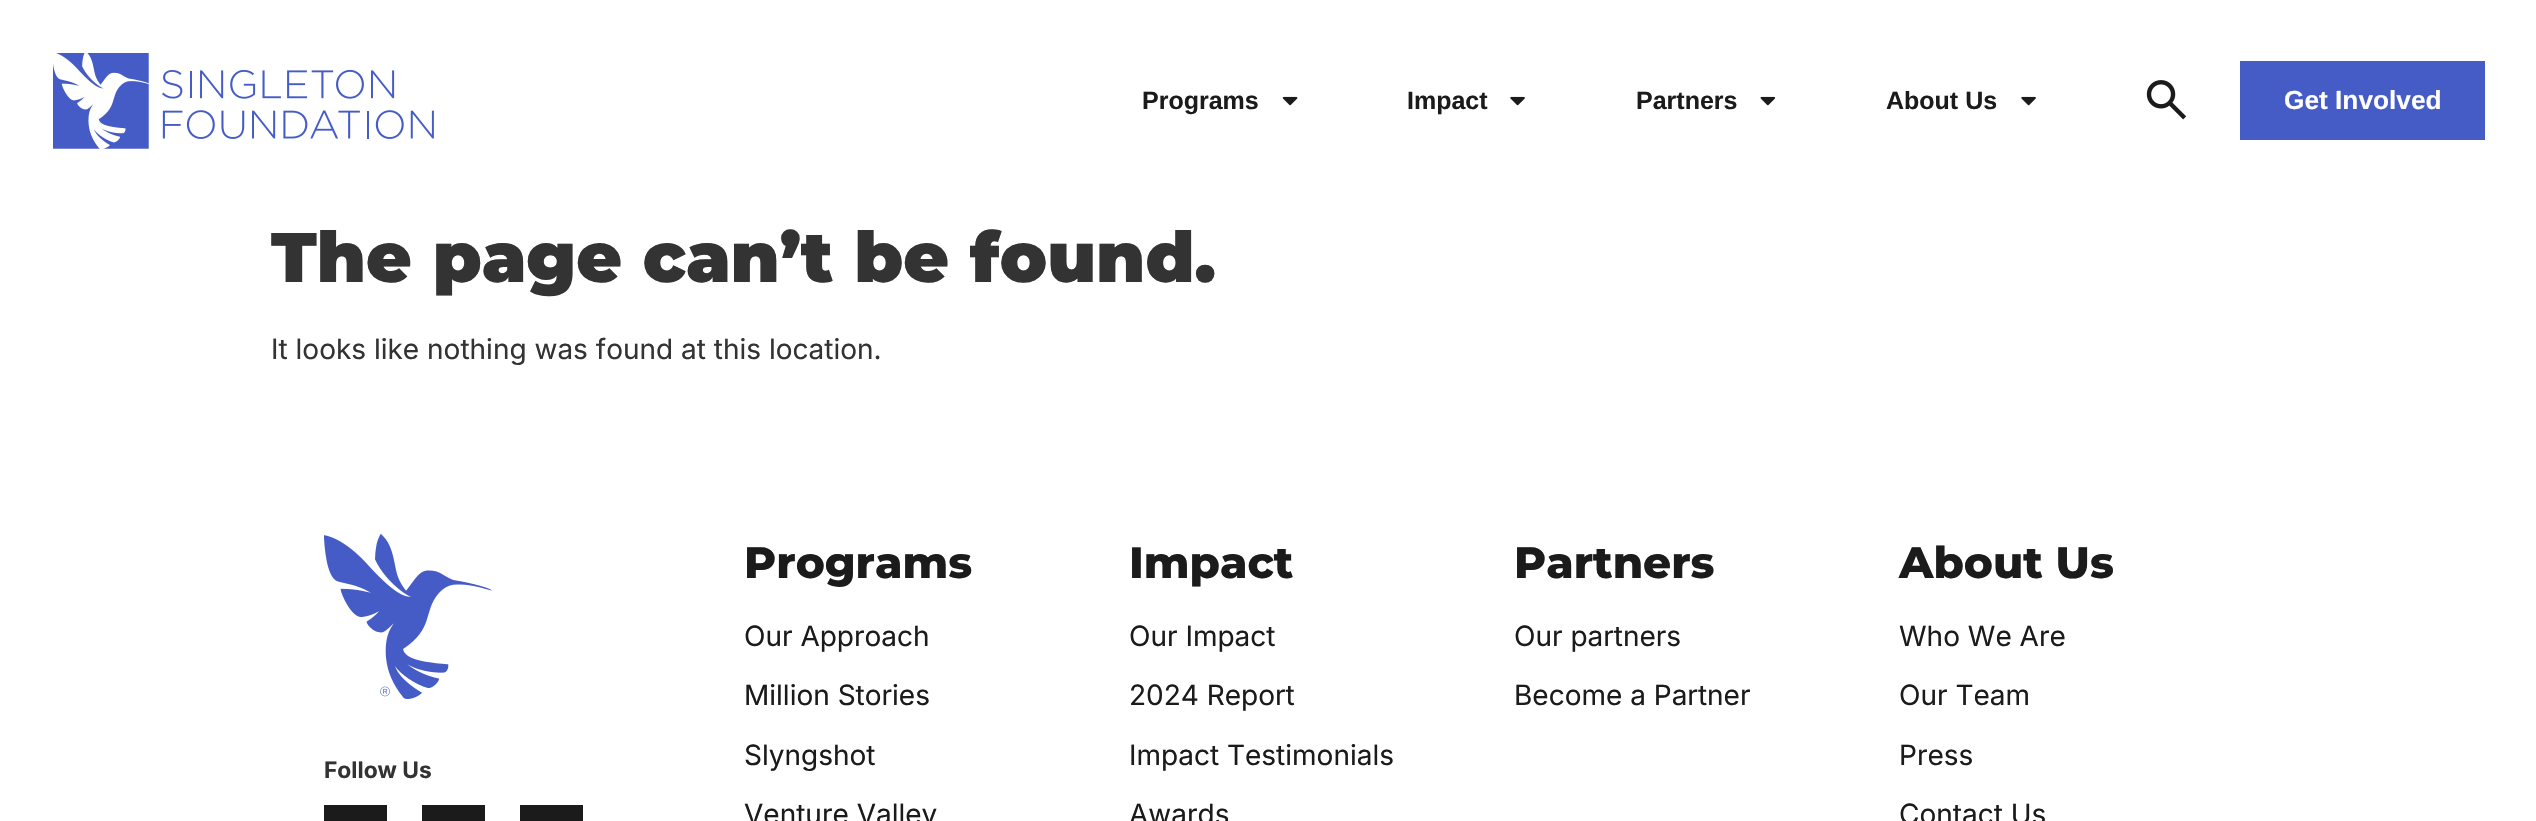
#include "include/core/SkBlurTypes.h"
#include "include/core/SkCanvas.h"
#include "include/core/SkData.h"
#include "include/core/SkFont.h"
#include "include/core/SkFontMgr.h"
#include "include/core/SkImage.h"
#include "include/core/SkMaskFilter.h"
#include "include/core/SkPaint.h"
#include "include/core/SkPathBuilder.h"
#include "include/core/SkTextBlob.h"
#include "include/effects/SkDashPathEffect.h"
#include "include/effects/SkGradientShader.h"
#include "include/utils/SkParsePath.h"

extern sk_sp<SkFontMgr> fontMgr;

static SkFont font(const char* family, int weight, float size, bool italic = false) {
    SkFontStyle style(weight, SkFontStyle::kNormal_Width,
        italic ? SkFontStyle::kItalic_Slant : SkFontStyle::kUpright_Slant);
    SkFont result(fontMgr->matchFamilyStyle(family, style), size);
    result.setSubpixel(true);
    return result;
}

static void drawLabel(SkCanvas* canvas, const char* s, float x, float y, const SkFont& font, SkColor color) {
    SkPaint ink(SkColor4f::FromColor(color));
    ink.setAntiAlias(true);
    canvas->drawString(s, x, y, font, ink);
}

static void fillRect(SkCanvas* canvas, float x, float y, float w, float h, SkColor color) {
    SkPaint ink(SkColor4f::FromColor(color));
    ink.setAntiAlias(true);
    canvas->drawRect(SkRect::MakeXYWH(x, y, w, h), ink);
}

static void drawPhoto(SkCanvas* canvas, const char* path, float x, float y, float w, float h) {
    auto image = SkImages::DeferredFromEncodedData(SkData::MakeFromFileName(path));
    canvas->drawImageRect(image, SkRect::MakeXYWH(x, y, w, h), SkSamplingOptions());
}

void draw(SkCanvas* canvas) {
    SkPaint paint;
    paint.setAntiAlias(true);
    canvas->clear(0xFFFFFFFF);
    drawPhoto(canvas, "assets/img1.png", 53, 53, 381, 96);
    SkFont font1 = font("Liberation Sans", 700, 25);
    drawLabel(canvas, "Programs", 1142, 109, font1, 0xFF1B1B1B);
    drawPhoto(canvas, "assets/img2.png", 1282, 96, 16, 10);
    drawLabel(canvas, "Impact", 1407, 109, font1, 0xFF1B1B1B);
    drawPhoto(canvas, "assets/img3.png", 1510, 96, 15, 10);
    drawLabel(canvas, "Partners", 1636, 109, font1, 0xFF1B1B1B);
    drawPhoto(canvas, "assets/img4.png", 1760, 96, 16, 10);
    drawLabel(canvas, "About Us", 1886, 109, font1, 0xFF1B1B1B);
    drawPhoto(canvas, "assets/img3.png", 2021, 96, 15, 10);
    drawPhoto(canvas, "assets/img5.png", 2146, 80, 41, 40);
    fillRect(canvas, 2240, 61, 245, 79, 0xFF455CC7);
    SkFont font2 = font("Liberation Sans", 700, 26.25f);
    drawLabel(canvas, "Get Involved", 2284, 109, font2, 0xFFFFFFFF);
    SkFont font3 = font("Montserrat", 900, 70);
    drawLabel(canvas, "The page can’t be found.", 271, 282, font3, 0xFF333333);
    SkFont font4 = font("Inter", 400, 28);
    drawLabel(canvas, "It looks like nothing was found at this location.", 271, 359, font4, 0xFF333333);
    SkFont font5 = font("Montserrat", 800, 43.75f);
    drawLabel(canvas, "Programs", 744, 578, font5, 0xFF1B1B1B);
    drawLabel(canvas, "Our Approach", 744, 646, font4, 0xFF1B1B1B);
    drawLabel(canvas, "Million Stories", 744, 705, font4, 0xFF1B1B1B);
    drawLabel(canvas, "Slyngshot", 744, 765, font4, 0xFF1B1B1B);
    drawLabel(canvas, "Venture Valley", 744, 824, font4, 0xFF1B1B1B);
    drawLabel(canvas, "Impact", 1129, 578, font5, 0xFF1B1B1B);
    drawLabel(canvas, "Our Impact", 1129, 646, font4, 0xFF1B1B1B);
    drawLabel(canvas, "2024 Report", 1129, 705, font4, 0xFF1B1B1B);
    drawLabel(canvas, "Impact Testimonials", 1129, 765, font4, 0xFF1B1B1B);
    drawLabel(canvas, "Awards", 1129, 824, font4, 0xFF1B1B1B);
    drawLabel(canvas, "Partners", 1514, 578, font5, 0xFF1B1B1B);
    drawLabel(canvas, "Our partners", 1514, 646, font4, 0xFF1B1B1B);
    drawLabel(canvas, "Become a Partner", 1514, 705, font4, 0xFF1B1B1B);
    drawLabel(canvas, "About Us", 1899, 578, font5, 0xFF1B1B1B);
    drawLabel(canvas, "Who We Are", 1899, 646, font4, 0xFF1B1B1B);
    drawLabel(canvas, "Our Team", 1899, 705, font4, 0xFF1B1B1B);
    drawLabel(canvas, "Press", 1899, 765, font4, 0xFF1B1B1B);
    drawLabel(canvas, "Contact Us", 1899, 824, font4, 0xFF1B1B1B);
    drawPhoto(canvas, "assets/img6.png", 324, 534, 168, 165);
    SkFont font6 = font("Inter", 700, 22.75f);
    drawLabel(canvas, "Follow Us", 324, 778, font6, 0xFF333333);
    fillRect(canvas, 324, 805, 63, 16, 0xFF1B1B1B);
    fillRect(canvas, 422, 805, 63, 16, 0xFF1B1B1B);
    fillRect(canvas, 520, 805, 63, 16, 0xFF1B1B1B);
}
